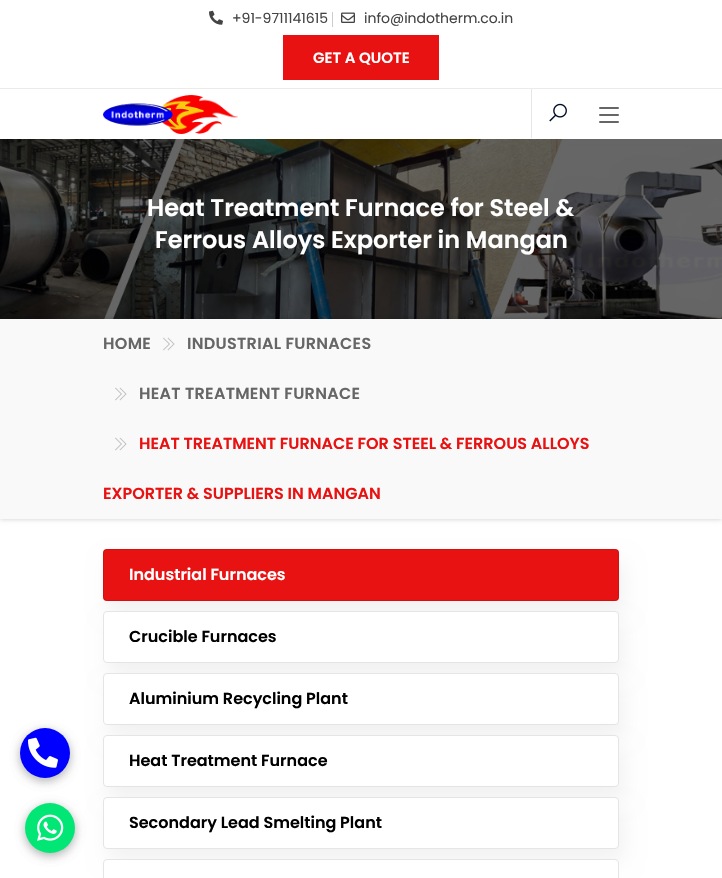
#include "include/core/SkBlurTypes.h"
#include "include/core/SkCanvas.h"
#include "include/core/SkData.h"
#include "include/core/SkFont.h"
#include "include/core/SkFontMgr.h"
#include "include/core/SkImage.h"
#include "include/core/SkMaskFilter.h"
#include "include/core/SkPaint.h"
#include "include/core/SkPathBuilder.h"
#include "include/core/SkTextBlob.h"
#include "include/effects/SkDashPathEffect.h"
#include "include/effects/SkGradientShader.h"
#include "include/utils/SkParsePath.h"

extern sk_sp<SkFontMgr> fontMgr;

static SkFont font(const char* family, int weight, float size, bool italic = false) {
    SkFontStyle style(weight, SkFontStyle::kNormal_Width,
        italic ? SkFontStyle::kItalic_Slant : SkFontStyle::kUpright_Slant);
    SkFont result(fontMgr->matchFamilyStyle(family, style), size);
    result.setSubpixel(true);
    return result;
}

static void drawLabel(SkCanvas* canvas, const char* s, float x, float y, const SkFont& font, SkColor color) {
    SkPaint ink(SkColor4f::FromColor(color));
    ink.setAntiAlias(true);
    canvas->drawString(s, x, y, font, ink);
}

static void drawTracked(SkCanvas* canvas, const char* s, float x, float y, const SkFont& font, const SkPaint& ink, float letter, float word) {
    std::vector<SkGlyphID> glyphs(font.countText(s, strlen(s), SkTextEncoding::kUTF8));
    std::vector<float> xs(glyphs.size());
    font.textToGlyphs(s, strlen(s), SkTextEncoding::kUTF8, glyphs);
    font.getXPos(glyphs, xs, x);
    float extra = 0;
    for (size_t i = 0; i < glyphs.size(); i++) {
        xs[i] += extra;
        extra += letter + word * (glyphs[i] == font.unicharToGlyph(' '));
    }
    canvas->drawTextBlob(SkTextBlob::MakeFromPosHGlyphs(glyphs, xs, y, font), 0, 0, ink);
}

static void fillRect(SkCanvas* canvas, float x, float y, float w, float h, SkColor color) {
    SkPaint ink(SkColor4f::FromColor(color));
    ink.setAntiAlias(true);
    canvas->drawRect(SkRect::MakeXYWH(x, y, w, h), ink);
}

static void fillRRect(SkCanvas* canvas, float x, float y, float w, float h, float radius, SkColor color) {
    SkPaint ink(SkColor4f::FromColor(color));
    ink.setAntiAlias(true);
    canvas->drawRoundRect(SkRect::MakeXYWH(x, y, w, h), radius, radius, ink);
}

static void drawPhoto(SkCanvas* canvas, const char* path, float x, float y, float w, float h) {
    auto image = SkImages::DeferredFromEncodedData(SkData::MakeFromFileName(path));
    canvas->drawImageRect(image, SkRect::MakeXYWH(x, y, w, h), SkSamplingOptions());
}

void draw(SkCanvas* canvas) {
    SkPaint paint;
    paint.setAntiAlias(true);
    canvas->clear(0xFFFFFFFF);
    fillRect(canvas, 0, 88, 722, 1, 0xFFEBEBEB);
    drawPhoto(canvas, "assets/img1.png", 209, 10, 14, 15);
    SkFont font1 = font("Poppins", 400, 14);
    drawLabel(canvas, "+91-9711141615", 232, 23, font1, 0xFF444444);
    fillRect(canvas, 332, 12, 1, 15, 0xFFCCCCCC);
    drawPhoto(canvas, "assets/img2.png", 341, 12, 14, 11);
    drawLabel(canvas, "info@indotherm.co.in", 364, 23, font1, 0xFF444444);
    fillRect(canvas, 283, 35, 156, 45, 0xFFE91212);
    SkFont font2 = font("Poppins", 600, 15);
    drawLabel(canvas, "GET A QUOTE", 313, 63, font2, 0xFFFFFFFF);
    drawPhoto(canvas, "assets/img3.png", 103, 95, 135, 39);
    fillRect(canvas, 531, 89, 1, 49, 0xFFE6E6E6);
    drawPhoto(canvas, "assets/img4.png", 549, 103, 18, 19);
    fillRRect(canvas, 599, 107, 20, 2, 1, 0xFF666666);
    fillRRect(canvas, 599, 114, 20, 2, 1, 0xFF666666);
    fillRRect(canvas, 599, 121, 20, 2, 1, 0xFF666666);
    drawPhoto(canvas, "assets/img5.png", 0, 139, 722, 180);
    SkFont font3 = font("Poppins", 600, 24);
    drawLabel(canvas, "Heat Treatment Furnace for Steel &", 147, 216, font3, 0xFFFFFFFF);
    drawLabel(canvas, "Ferrous Alloys Exporter in Mangan", 155, 248, font3, 0xFFFFFFFF);
    paint.setColor(0x33000000);
    paint.setMaskFilter(SkMaskFilter::MakeBlur(kNormal_SkBlurStyle, 2.5f));
    canvas->drawRect(SkRect::MakeXYWH(0, 319, 722, 200), paint);
    paint.setMaskFilter(nullptr);
    fillRect(canvas, 0, 319, 722, 200, 0xFFF9F9F9);
    SkFont font4 = font("Poppins", 600, 16);
    paint.setColor(0xFF666666);
    drawTracked(canvas, "HOME", 103, 349, font4, paint, 0.3f, 0);
    drawPhoto(canvas, "assets/img6.png", 163, 337, 12, 14);
    drawTracked(canvas, "INDUSTRIAL FURNACES", 187, 349, font4, paint, 0.3f, 0);
    drawPhoto(canvas, "assets/img6.png", 115, 387, 12, 14);
    drawTracked(canvas, "HEAT TREATMENT FURNACE", 139, 399, font4, paint, 0.3f, 0);
    drawPhoto(canvas, "assets/img6.png", 115, 437, 12, 14);
    drawLabel(canvas, "HEAT TREATMENT FURNACE FOR STEEL & FERROUS ALLOYS", 139, 449, font4, 0xFFE91212);
    drawLabel(canvas, "EXPORTER & SUPPLIERS IN MANGAN", 103, 499, font4, 0xFFE91212);
    paint.setColor(0x29000000);
    paint.setMaskFilter(SkMaskFilter::MakeBlur(kNormal_SkBlurStyle, 5));
    canvas->drawRoundRect(SkRect::MakeXYWH(20, 731, 50, 50), 25, 25, paint);
    paint.setMaskFilter(nullptr);
    paint.setMaskFilter(SkMaskFilter::MakeBlur(kNormal_SkBlurStyle, 5));
    canvas->drawRoundRect(SkRect::MakeXYWH(20, 731, 50, 50), 25, 25, paint);
    paint.setMaskFilter(nullptr);
    paint.setColor(0xFF0000FF);
    canvas->drawCircle(45, 753, 25, paint);
    drawPhoto(canvas, "assets/img7.png", 28, 737, 30, 31);
    paint.setColor(0x29000000);
    paint.setMaskFilter(SkMaskFilter::MakeBlur(kNormal_SkBlurStyle, 5));
    canvas->drawRoundRect(SkRect::MakeXYWH(25, 806, 50, 50), 25, 25, paint);
    paint.setMaskFilter(nullptr);
    paint.setMaskFilter(SkMaskFilter::MakeBlur(kNormal_SkBlurStyle, 5));
    canvas->drawRoundRect(SkRect::MakeXYWH(25, 806, 50, 50), 25, 25, paint);
    paint.setMaskFilter(nullptr);
    paint.setColor(0xFF01E675);
    canvas->drawCircle(50, 828, 25, paint);
    drawPhoto(canvas, "assets/img8.png", 37, 814, 27, 27);
    paint.setColor(0x0D000000);
    paint.setMaskFilter(SkMaskFilter::MakeBlur(kNormal_SkBlurStyle, 10));
    canvas->drawRoundRect(SkRect::MakeXYWH(108, 561, 516, 52), 4, 4, paint);
    paint.setMaskFilter(nullptr);
    fillRRect(canvas, 103, 549, 516, 52, 4, 0xFFE91212);
    paint.setStroke(true);
    paint.setStrokeWidth(1);
    paint.setColor(0x1A000000);
    canvas->drawRoundRect(SkRect::MakeXYWH(103.5f, 549.5f, 515, 51), 3.5f, 3.5f, paint);
    drawLabel(canvas, "Industrial Furnaces", 129, 580, font4, 0xFFFFFFFF);
    paint.setStroke(false);
    paint.setColor(0x0D000000);
    paint.setMaskFilter(SkMaskFilter::MakeBlur(kNormal_SkBlurStyle, 10));
    canvas->drawRoundRect(SkRect::MakeXYWH(108, 623, 516, 52), 4, 4, paint);
    paint.setMaskFilter(nullptr);
    paint.setColor(0xFFFFFFFF);
    canvas->drawRoundRect(SkRect::MakeXYWH(103.5f, 611.5f, 515, 51), 3.5f, 3.5f, paint);
    paint.setStroke(true);
    paint.setColor(0xFFE5E5E5);
    canvas->drawRoundRect(SkRect::MakeXYWH(103.5f, 611.5f, 515, 51), 3.5f, 3.5f, paint);
    drawLabel(canvas, "Crucible Furnaces", 129, 642, font4, 0xFF000000);
    paint.setStroke(false);
    paint.setColor(0x0D000000);
    paint.setMaskFilter(SkMaskFilter::MakeBlur(kNormal_SkBlurStyle, 10));
    canvas->drawRoundRect(SkRect::MakeXYWH(108, 685, 516, 52), 4, 4, paint);
    paint.setMaskFilter(nullptr);
    paint.setColor(0xFFFFFFFF);
    canvas->drawRoundRect(SkRect::MakeXYWH(103.5f, 673.5f, 515, 51), 3.5f, 3.5f, paint);
    paint.setStroke(true);
    paint.setColor(0xFFE5E5E5);
    canvas->drawRoundRect(SkRect::MakeXYWH(103.5f, 673.5f, 515, 51), 3.5f, 3.5f, paint);
    drawLabel(canvas, "Aluminium Recycling Plant", 129, 704, font4, 0xFF000000);
    paint.setStroke(false);
    paint.setColor(0x0D000000);
    paint.setMaskFilter(SkMaskFilter::MakeBlur(kNormal_SkBlurStyle, 10));
    canvas->drawRoundRect(SkRect::MakeXYWH(108, 747, 516, 52), 4, 4, paint);
    paint.setMaskFilter(nullptr);
    paint.setColor(0xFFFFFFFF);
    canvas->drawRoundRect(SkRect::MakeXYWH(103.5f, 735.5f, 515, 51), 3.5f, 3.5f, paint);
    paint.setStroke(true);
    paint.setColor(0xFFE5E5E5);
    canvas->drawRoundRect(SkRect::MakeXYWH(103.5f, 735.5f, 515, 51), 3.5f, 3.5f, paint);
    drawLabel(canvas, "Heat Treatment Furnace", 129, 766, font4, 0xFF000000);
    paint.setStroke(false);
    paint.setColor(0x0D000000);
    paint.setMaskFilter(SkMaskFilter::MakeBlur(kNormal_SkBlurStyle, 10));
    canvas->drawRoundRect(SkRect::MakeXYWH(108, 809, 516, 52), 4, 4, paint);
    paint.setMaskFilter(nullptr);
    paint.setColor(0xFFFFFFFF);
    canvas->drawRoundRect(SkRect::MakeXYWH(103.5f, 797.5f, 515, 51), 3.5f, 3.5f, paint);
    paint.setStroke(true);
    paint.setColor(0xFFE5E5E5);
    canvas->drawRoundRect(SkRect::MakeXYWH(103.5f, 797.5f, 515, 51), 3.5f, 3.5f, paint);
    drawLabel(canvas, "Secondary Lead Smelting Plant", 129, 828, font4, 0xFF000000);
    paint.setStroke(false);
    paint.setColor(0xFFFFFFFF);
    canvas->drawRoundRect(SkRect::MakeXYWH(103.5f, 859.5f, 515, 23), 3.5f, 3.5f, paint);
    paint.setStroke(true);
    paint.setColor(0xFFE5E5E5);
    canvas->drawRoundRect(SkRect::MakeXYWH(103.5f, 859.5f, 515, 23), 3.5f, 3.5f, paint);
}
